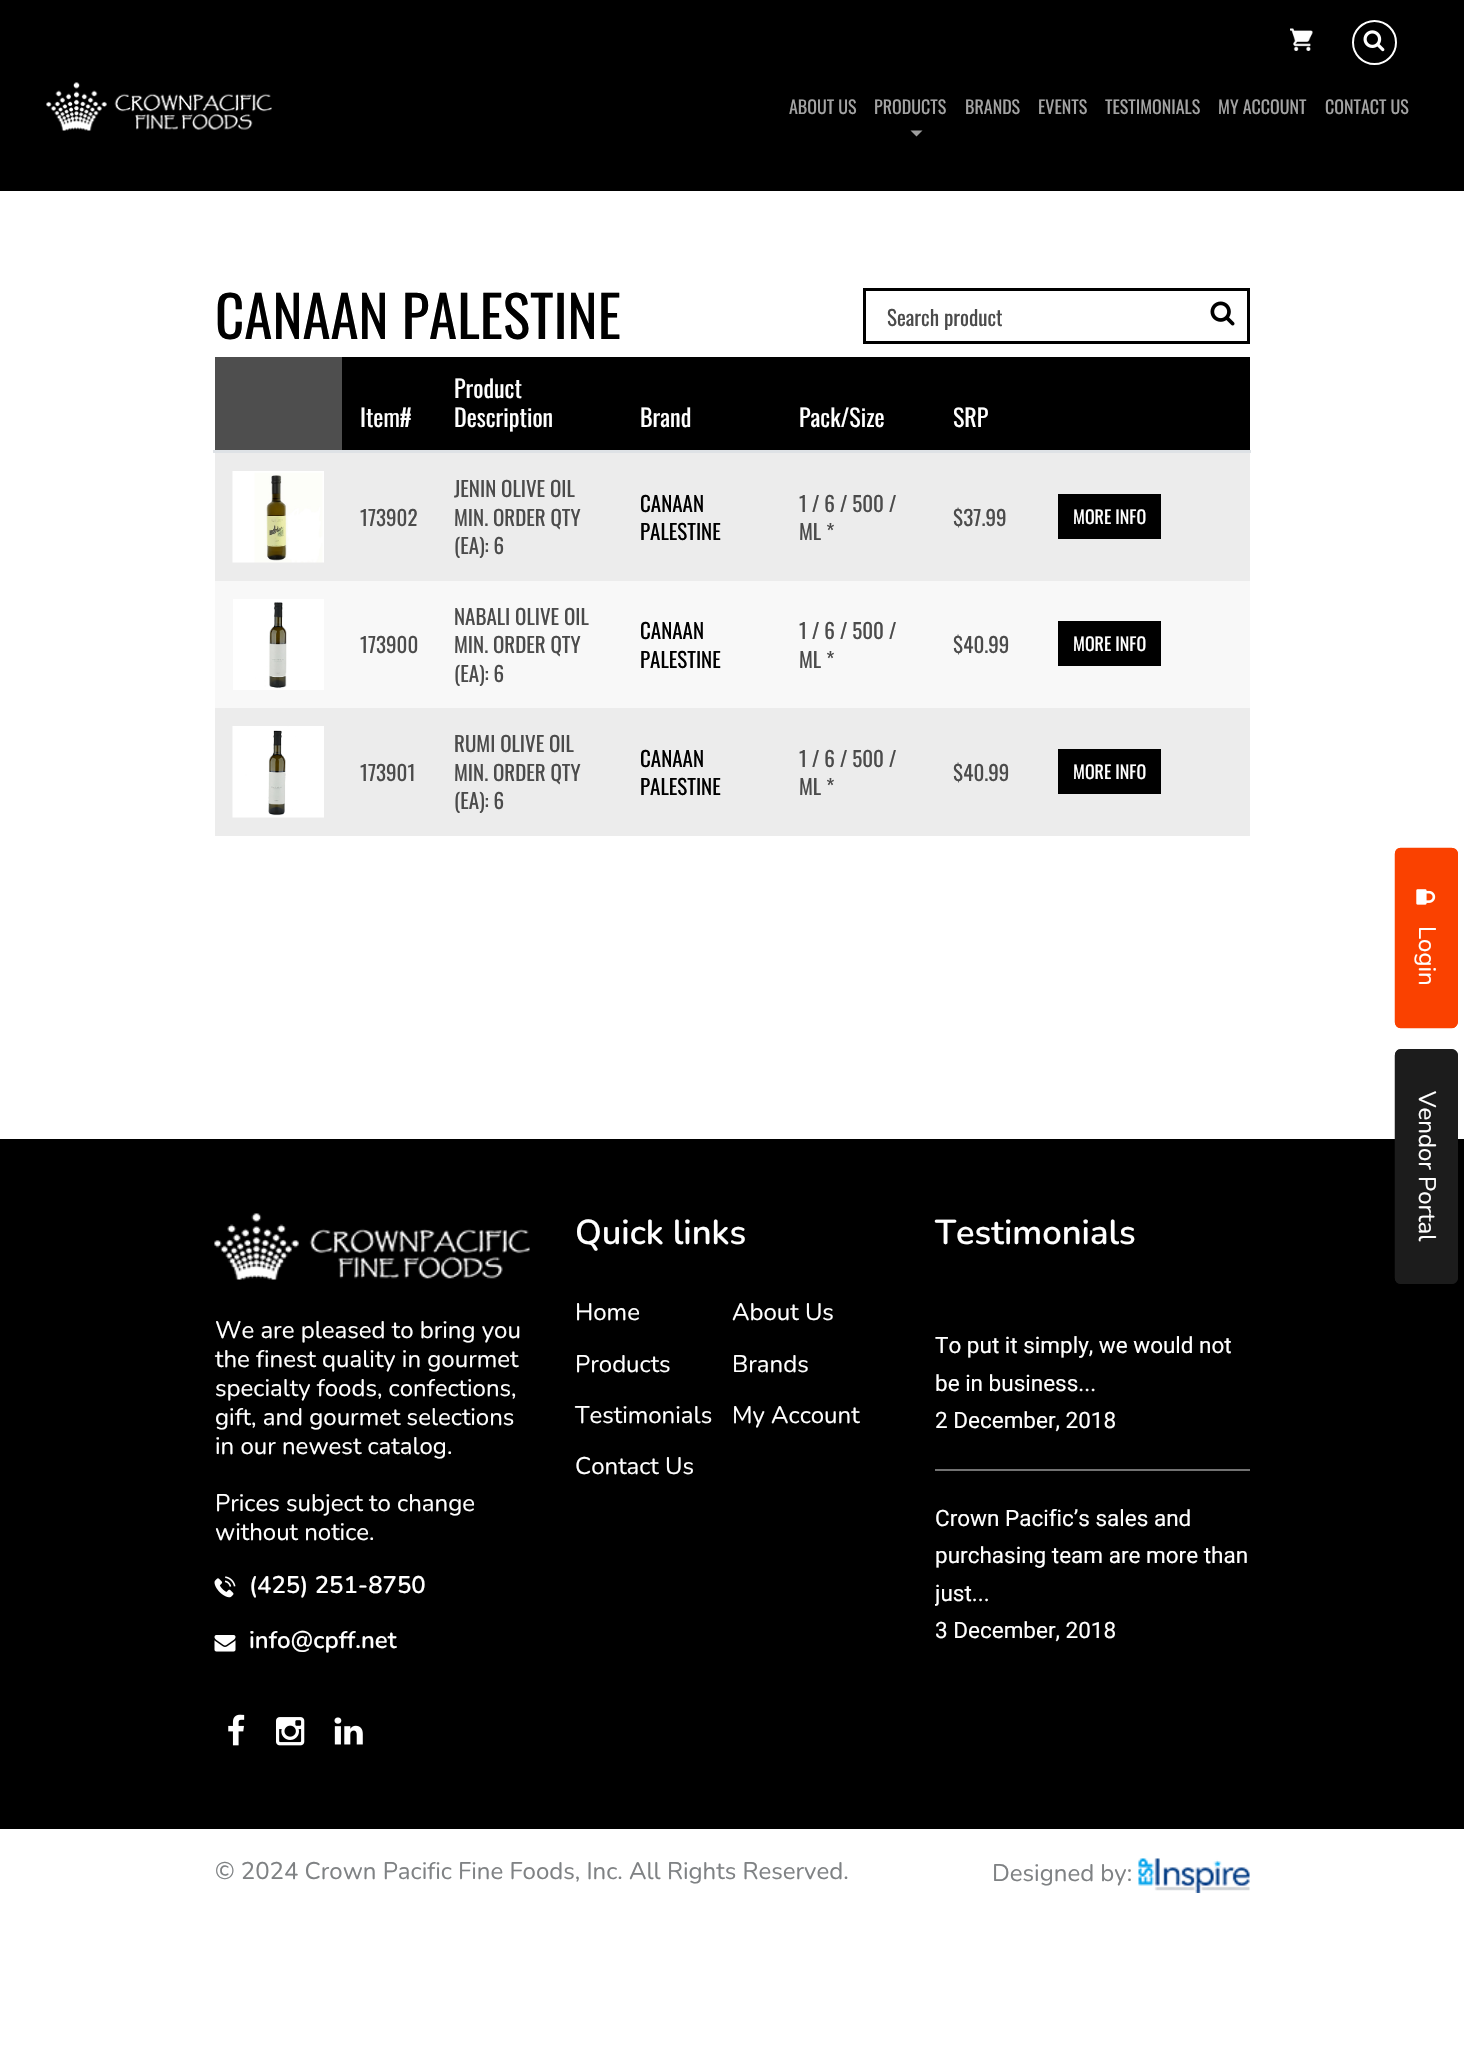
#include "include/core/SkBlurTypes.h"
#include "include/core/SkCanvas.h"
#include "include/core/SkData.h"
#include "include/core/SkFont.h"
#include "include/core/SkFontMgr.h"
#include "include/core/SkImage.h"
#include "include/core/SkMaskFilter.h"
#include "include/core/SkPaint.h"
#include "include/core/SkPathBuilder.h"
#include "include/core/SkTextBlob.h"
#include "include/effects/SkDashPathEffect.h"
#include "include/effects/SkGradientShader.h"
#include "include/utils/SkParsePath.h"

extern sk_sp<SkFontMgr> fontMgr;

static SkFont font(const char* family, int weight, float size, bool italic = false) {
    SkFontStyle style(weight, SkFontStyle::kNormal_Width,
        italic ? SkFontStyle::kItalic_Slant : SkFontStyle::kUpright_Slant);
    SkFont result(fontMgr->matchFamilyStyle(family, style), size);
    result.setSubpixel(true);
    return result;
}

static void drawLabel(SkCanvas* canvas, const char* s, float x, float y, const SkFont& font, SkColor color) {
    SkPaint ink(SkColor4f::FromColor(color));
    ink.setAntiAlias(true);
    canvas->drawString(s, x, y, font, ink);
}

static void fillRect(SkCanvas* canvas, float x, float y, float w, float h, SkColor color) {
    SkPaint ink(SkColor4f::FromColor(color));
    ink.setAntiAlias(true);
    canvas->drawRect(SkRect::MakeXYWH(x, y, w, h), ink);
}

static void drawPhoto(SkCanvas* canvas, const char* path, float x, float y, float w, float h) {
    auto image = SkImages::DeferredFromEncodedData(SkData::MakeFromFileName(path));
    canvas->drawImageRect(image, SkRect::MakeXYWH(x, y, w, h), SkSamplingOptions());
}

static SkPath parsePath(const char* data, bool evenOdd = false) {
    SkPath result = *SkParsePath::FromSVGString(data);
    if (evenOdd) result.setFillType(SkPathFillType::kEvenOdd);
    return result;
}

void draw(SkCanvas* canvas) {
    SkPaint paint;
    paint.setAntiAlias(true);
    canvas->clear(0xFFFFFFFF);
    fillRect(canvas, 0, 0, 1464, 191, 0xFF000000);
    drawPhoto(canvas, "assets/img1.png", 1290, 28, 23, 23);
    paint.setStroke(true);
    paint.setStrokeWidth(2);
    paint.setColor(0xFFFFFFFF);
    canvas->drawCircle(1374.5f, 42.5f, 21.5f, paint);
    drawPhoto(canvas, "assets/img2.png", 1363, 30, 22, 22);
    drawPhoto(canvas, "assets/img3.png", 46, 82, 226, 49);
    SkFont font1 = font("Oswald", 400, 18);
    drawLabel(canvas, "ABOUT US", 789, 114, font1, 0xFFA3A3A3);
    drawLabel(canvas, "PRODUCTS", 874, 114, font1, 0xFFA3A3A3);
    paint.setStroke(false);
    paint.setColor(0xFF9D9D9D);
    canvas->drawPath(parsePath("M910.5 130.5H922.5L916.5 136.5Z"), paint);
    drawLabel(canvas, "BRANDS", 965, 114, font1, 0xFFA3A3A3);
    drawLabel(canvas, "EVENTS", 1038, 114, font1, 0xFFA3A3A3);
    drawLabel(canvas, "TESTIMONIALS", 1105, 114, font1, 0xFFA3A3A3);
    drawLabel(canvas, "MY ACCOUNT", 1218, 114, font1, 0xFFA3A3A3);
    drawLabel(canvas, "CONTACT US", 1325, 114, font1, 0xFFA3A3A3);
    SkFont font2 = font("Oswald", 400, 57);
    drawLabel(canvas, "CANAAN PALESTINE", 215, 339, font2, 0xFF000000);
    paint.setStroke(true);
    paint.setStrokeWidth(3);
    paint.setColor(0xFF000000);
    canvas->drawRect(SkRect::MakeXYWH(864.5f, 289.5f, 384, 53), paint);
    SkFont font3 = font("Oswald", 400, 21);
    drawLabel(canvas, "Search product", 887, 326, font3, 0xFF4B4B4B);
    drawPhoto(canvas, "assets/img4.png", 1210, 301, 25, 25);
    fillRect(canvas, 215, 357, 127, 93, 0xFF4E4E4E);
    fillRect(canvas, 342, 357, 908, 93, 0xFF000000);
    SkFont font4 = font("Oswald", 400, 24);
    drawLabel(canvas, "Item#", 360, 427, font4, 0xFFFFFFFF);
    drawLabel(canvas, "Product", 454, 398, font4, 0xFFFFFFFF);
    drawLabel(canvas, "Description", 454, 427, font4, 0xFFFFFFFF);
    drawLabel(canvas, "Brand", 640, 427, font4, 0xFFFFFFFF);
    drawLabel(canvas, "Pack/Size", 799, 427, font4, 0xFFFFFFFF);
    drawLabel(canvas, "SRP", 953, 427, font4, 0xFFFFFFFF);
    fillRect(canvas, 213, 450, 1038, 3, 0xFFDEE2E6);
    fillRect(canvas, 215, 453, 1035, 128, 0xFFECECEC);
    drawPhoto(canvas, "assets/img5.png", 232, 471, 92, 92);
    drawLabel(canvas, "173902", 360, 526, font3, 0xFF4B4B4B);
    drawLabel(canvas, "JENIN OLIVE OIL", 454, 497, font3, 0xFF4B4B4B);
    drawLabel(canvas, "MIN. ORDER QTY", 454, 526, font3, 0xFF4B4B4B);
    drawLabel(canvas, "(EA): 6", 454, 554, font3, 0xFF4B4B4B);
    drawLabel(canvas, "CANAAN", 640, 512, font3, 0xFF000000);
    drawLabel(canvas, "PALESTINE", 640, 540, font3, 0xFF000000);
    drawLabel(canvas, "1 / 6 / 500 /", 799, 512, font3, 0xFF4B4B4B);
    drawLabel(canvas, "ML *", 799, 540, font3, 0xFF4B4B4B);
    drawLabel(canvas, "$37.99", 953, 526, font3, 0xFF4B4B4B);
    fillRect(canvas, 1058, 494, 103, 45, 0xFF000000);
    drawLabel(canvas, "MORE INFO", 1073, 524, font1, 0xFFFFFFFF);
    fillRect(canvas, 215, 581, 1035, 127, 0xFFF8F8F8);
    drawPhoto(canvas, "assets/img6.png", 233, 599, 91, 91);
    drawLabel(canvas, "173900", 360, 653, font3, 0xFF4B4B4B);
    drawLabel(canvas, "NABALI OLIVE OIL", 454, 625, font3, 0xFF4B4B4B);
    drawLabel(canvas, "MIN. ORDER QTY", 454, 653, font3, 0xFF4B4B4B);
    drawLabel(canvas, "(EA): 6", 454, 682, font3, 0xFF4B4B4B);
    drawLabel(canvas, "CANAAN", 640, 639, font3, 0xFF000000);
    drawLabel(canvas, "PALESTINE", 640, 668, font3, 0xFF000000);
    drawLabel(canvas, "1 / 6 / 500 /", 799, 639, font3, 0xFF4B4B4B);
    drawLabel(canvas, "ML *", 799, 668, font3, 0xFF4B4B4B);
    drawLabel(canvas, "$40.99", 953, 653, font3, 0xFF4B4B4B);
    fillRect(canvas, 1058, 621, 103, 45, 0xFF000000);
    drawLabel(canvas, "MORE INFO", 1073, 651, font1, 0xFFFFFFFF);
    fillRect(canvas, 215, 708, 1035, 128, 0xFFECECEC);
    drawPhoto(canvas, "assets/img7.png", 232, 726, 92, 92);
    drawLabel(canvas, "173901", 360, 781, font3, 0xFF4B4B4B);
    drawLabel(canvas, "RUMI OLIVE OIL", 454, 752, font3, 0xFF4B4B4B);
    drawLabel(canvas, "MIN. ORDER QTY", 454, 781, font3, 0xFF4B4B4B);
    drawLabel(canvas, "(EA): 6", 454, 809, font3, 0xFF4B4B4B);
    drawLabel(canvas, "CANAAN", 640, 767, font3, 0xFF000000);
    drawLabel(canvas, "PALESTINE", 640, 795, font3, 0xFF000000);
    drawLabel(canvas, "1 / 6 / 500 /", 799, 767, font3, 0xFF4B4B4B);
    drawLabel(canvas, "ML *", 799, 795, font3, 0xFF4B4B4B);
    drawLabel(canvas, "$40.99", 953, 781, font3, 0xFF4B4B4B);
    fillRect(canvas, 1058, 749, 103, 45, 0xFF000000);
    drawLabel(canvas, "MORE INFO", 1073, 779, font1, 0xFFFFFFFF);
    paint.setStroke(false);
    paint.setColor(0xFFFA4100);
    canvas->drawPath(parsePath("M1458 854V1022C1458 1025 1455 1028 1452 1028H1401C1397 1028 1395 1025 1395 1022V854C1395 850 1397 848 1401 848H1452C1455 848 1458 850 1458 854Z"), paint);
    paint.setStroke(true);
    paint.setStrokeWidth(1.5f);
    canvas->drawPath(parsePath("M1457 854V1022C1457 1025 1454.5 1027.5 1451.5 1027.5H1400.5C1397.5 1027.5 1395.5 1025 1395.5 1022V854C1395.5 851 1397.5 848.5 1400.5 848.5H1451.5C1454.5 848.5 1457 851 1457 854Z"), paint);
    drawPhoto(canvas, "assets/img8.png", 1416, 889, 20, 16);
    SkFont font5 = font("Nunito", 400, 24);
    canvas->save();
    canvas->rotate(90, 1419, 926);
    drawLabel(canvas, "Login", 1419, 926, font5, 0xFFFFFFFF);
    canvas->restore();
    fillRect(canvas, 0, 1139, 1464, 690, 0xFF000000);
    paint.setStroke(false);
    paint.setColor(0xFF1C1C1C);
    canvas->drawPath(parsePath("M1458 1055V1278C1458 1281 1455 1284 1452 1284H1401C1397 1284 1395 1281 1395 1278V1055C1395 1052 1397 1049 1401 1049H1452C1455 1049 1458 1052 1458 1055Z"), paint);
    paint.setStroke(true);
    canvas->drawPath(parsePath("M1457 1055.5V1277.5C1457 1280.5 1454.5 1283 1451.5 1283H1400.5C1397.5 1283 1395.5 1280.5 1395.5 1277.5V1055.5C1395.5 1052.5 1397.5 1050 1400.5 1050H1451.5C1454.5 1050 1457 1052.5 1457 1055.5Z"), paint);
    canvas->save();
    canvas->rotate(90, 1419, 1091);
    drawLabel(canvas, "Vendor Portal", 1419, 1091, font5, 0xFFFFFFFF);
    canvas->restore();
    drawPhoto(canvas, "assets/img9.png", 214, 1213, 316, 67);
    drawLabel(canvas, "We are pleased to bring you", 215, 1338, font5, 0xFFFFFFFF);
    drawLabel(canvas, "the finest quality in gourmet", 215, 1367, font5, 0xFFFFFFFF);
    drawLabel(canvas, "specialty foods, confections,", 215, 1396, font5, 0xFFFFFFFF);
    drawLabel(canvas, "gift, and gourmet selections", 215, 1425, font5, 0xFFFFFFFF);
    drawLabel(canvas, "in our newest catalog.", 215, 1454, font5, 0xFFFFFFFF);
    drawLabel(canvas, "Prices subject to change", 215, 1511, font5, 0xFFFFFFFF);
    drawLabel(canvas, "without notice.", 215, 1540, font5, 0xFFFFFFFF);
    drawPhoto(canvas, "assets/img10.png", 214, 1576, 22, 22);
    SkFont font6 = font("Nunito", 600, 24);
    drawLabel(canvas, "(425) 251-8750", 249, 1593, font6, 0xFFFFFFFF);
    drawPhoto(canvas, "assets/img11.png", 214, 1635, 22, 17);
    drawLabel(canvas, "info@cpff.net", 249, 1648, font6, 0xFFFFFFFF);
    drawPhoto(canvas, "assets/img12.png", 228, 1714, 17, 32);
    drawPhoto(canvas, "assets/img13.png", 276, 1717, 29, 29);
    drawPhoto(canvas, "assets/img14.png", 334, 1717, 29, 28);
    SkFont font7 = font("Nunito", 600, 34.5f);
    drawLabel(canvas, "Quick links", 575, 1244, font7, 0xFFFFFFFF);
    drawLabel(canvas, "Home", 575, 1320, font5, 0xFFFFFFFF);
    drawLabel(canvas, "About Us", 732, 1320, font5, 0xFFFFFFFF);
    drawLabel(canvas, "Products", 575, 1372, font5, 0xFFFFFFFF);
    drawLabel(canvas, "Brands", 732, 1372, font5, 0xFFFFFFFF);
    drawLabel(canvas, "Testimonials", 575, 1423, font5, 0xFFFFFFFF);
    drawLabel(canvas, "My Account", 732, 1423, font5, 0xFFFFFFFF);
    drawLabel(canvas, "Contact Us", 575, 1474, font5, 0xFFFFFFFF);
    drawLabel(canvas, "Testimonials", 935, 1244, font7, 0xFFFFFFFF);
    SkFont font8 = font("Roboto", 400, 22.5f);
    drawLabel(canvas, "To put it simply, we would not", 935, 1353, font8, 0xFFFFFFFF);
    drawLabel(canvas, "be in business...", 935, 1391, font8, 0xFFFFFFFF);
    drawLabel(canvas, "2 December, 2018", 935, 1428, font8, 0xFFFFFFFF);
    fillRect(canvas, 935, 1469, 315, 2, 0xFF727272);
    drawLabel(canvas, "Crown Pacific’s sales and", 935, 1526, font8, 0xFFFFFFFF);
    drawLabel(canvas, "purchasing team are more than", 935, 1563, font8, 0xFFFFFFFF);
    canvas->save();
    canvas->clipRect(SkRect::MakeXYWH(935, 1299, 315, 342));
    drawLabel(canvas, "just...", 935, 1601, font8, 0xFFFFFFFF);
    canvas->restore();
    drawLabel(canvas, "3 December, 2018", 935, 1638, font8, 0xFFFFFFFF);
    drawLabel(canvas, "© 2024 Crown Pacific Fine Foods, Inc. All Rights Reserved.", 215, 1879, font5, 0xFF7F8284);
    drawLabel(canvas, "Designed by:", 992, 1881, font5, 0xFF7F8284);
    drawPhoto(canvas, "assets/img15.png", 1138, 1858, 112, 35);
}
